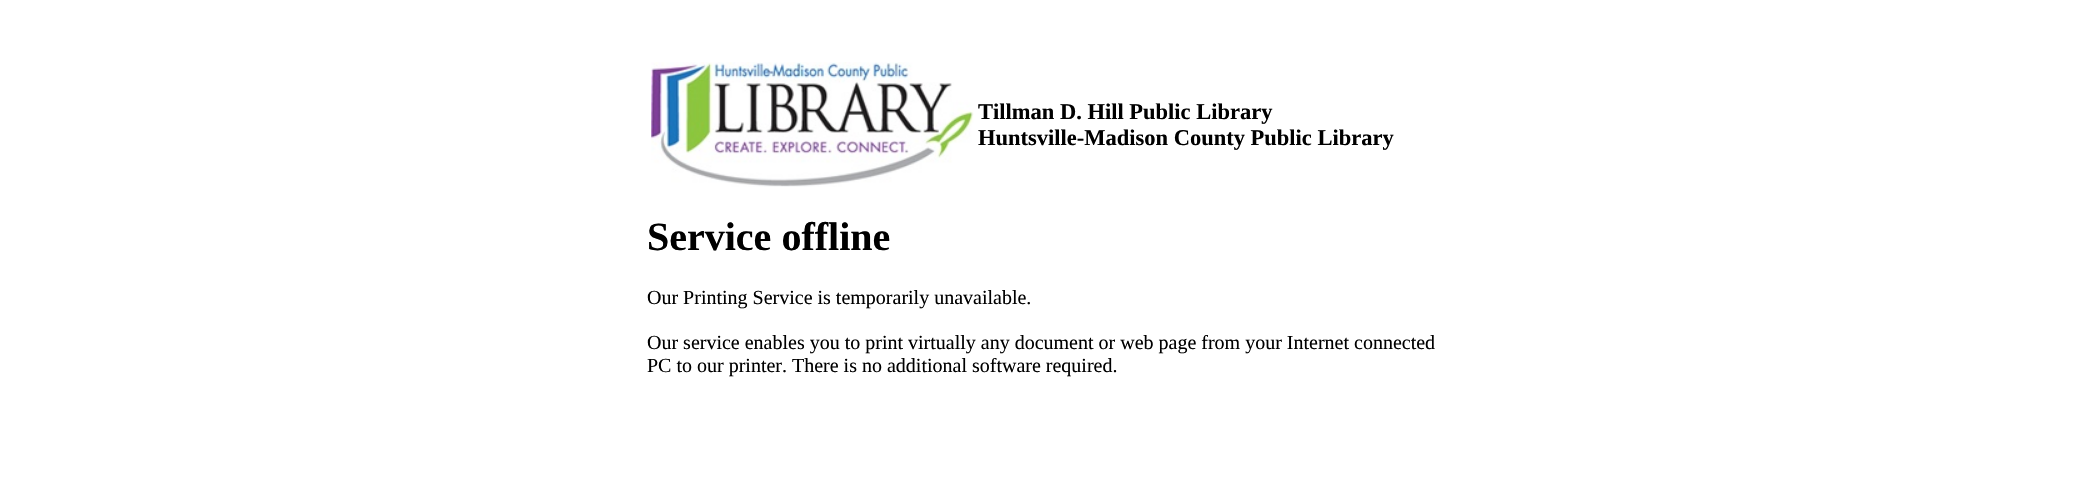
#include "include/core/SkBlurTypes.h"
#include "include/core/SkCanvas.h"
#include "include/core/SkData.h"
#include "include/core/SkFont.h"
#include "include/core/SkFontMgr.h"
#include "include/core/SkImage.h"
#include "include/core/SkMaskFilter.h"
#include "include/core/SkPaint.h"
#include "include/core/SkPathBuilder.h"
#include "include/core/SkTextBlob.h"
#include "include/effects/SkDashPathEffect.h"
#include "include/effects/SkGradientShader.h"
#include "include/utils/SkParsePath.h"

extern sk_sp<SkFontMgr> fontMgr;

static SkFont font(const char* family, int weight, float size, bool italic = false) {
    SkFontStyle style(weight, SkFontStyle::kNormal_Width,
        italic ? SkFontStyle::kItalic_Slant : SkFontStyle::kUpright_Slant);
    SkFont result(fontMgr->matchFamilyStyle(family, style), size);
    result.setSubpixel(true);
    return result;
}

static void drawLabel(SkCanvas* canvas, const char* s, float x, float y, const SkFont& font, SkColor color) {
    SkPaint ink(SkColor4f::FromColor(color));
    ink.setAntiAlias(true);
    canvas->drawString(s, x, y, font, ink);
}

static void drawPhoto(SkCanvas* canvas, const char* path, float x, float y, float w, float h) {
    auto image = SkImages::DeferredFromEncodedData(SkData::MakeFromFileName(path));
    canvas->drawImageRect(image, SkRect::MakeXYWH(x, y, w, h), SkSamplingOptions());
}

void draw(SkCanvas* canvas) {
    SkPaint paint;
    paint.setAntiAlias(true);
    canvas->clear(0xFFFFFFFF);
    drawPhoto(canvas, "assets/img1.png", 651, 62, 323, 125);
    SkFont font1 = font("Liberation Serif", 700, 22.5f);
    drawLabel(canvas, "Tillman D. Hill Public Library", 978, 119, font1, 0xFF000000);
    drawLabel(canvas, "Huntsville-Madison County Public Library", 978, 145, font1, 0xFF000000);
    SkFont font2 = font("Liberation Serif", 700, 40);
    drawLabel(canvas, "Service offline", 647, 250, font2, 0xFF000000);
    SkFont font3 = font("Liberation Serif", 400, 20);
    drawLabel(canvas, "Our Printing Service is temporarily unavailable.", 647, 304, font3, 0xFF000000);
    drawLabel(canvas, "Our service enables you to print virtually any document or web page from your Internet connected", 647, 349, font3, 0xFF000000);
    drawLabel(canvas, "PC to our printer. There is no additional software required.", 647, 372, font3, 0xFF000000);
}
